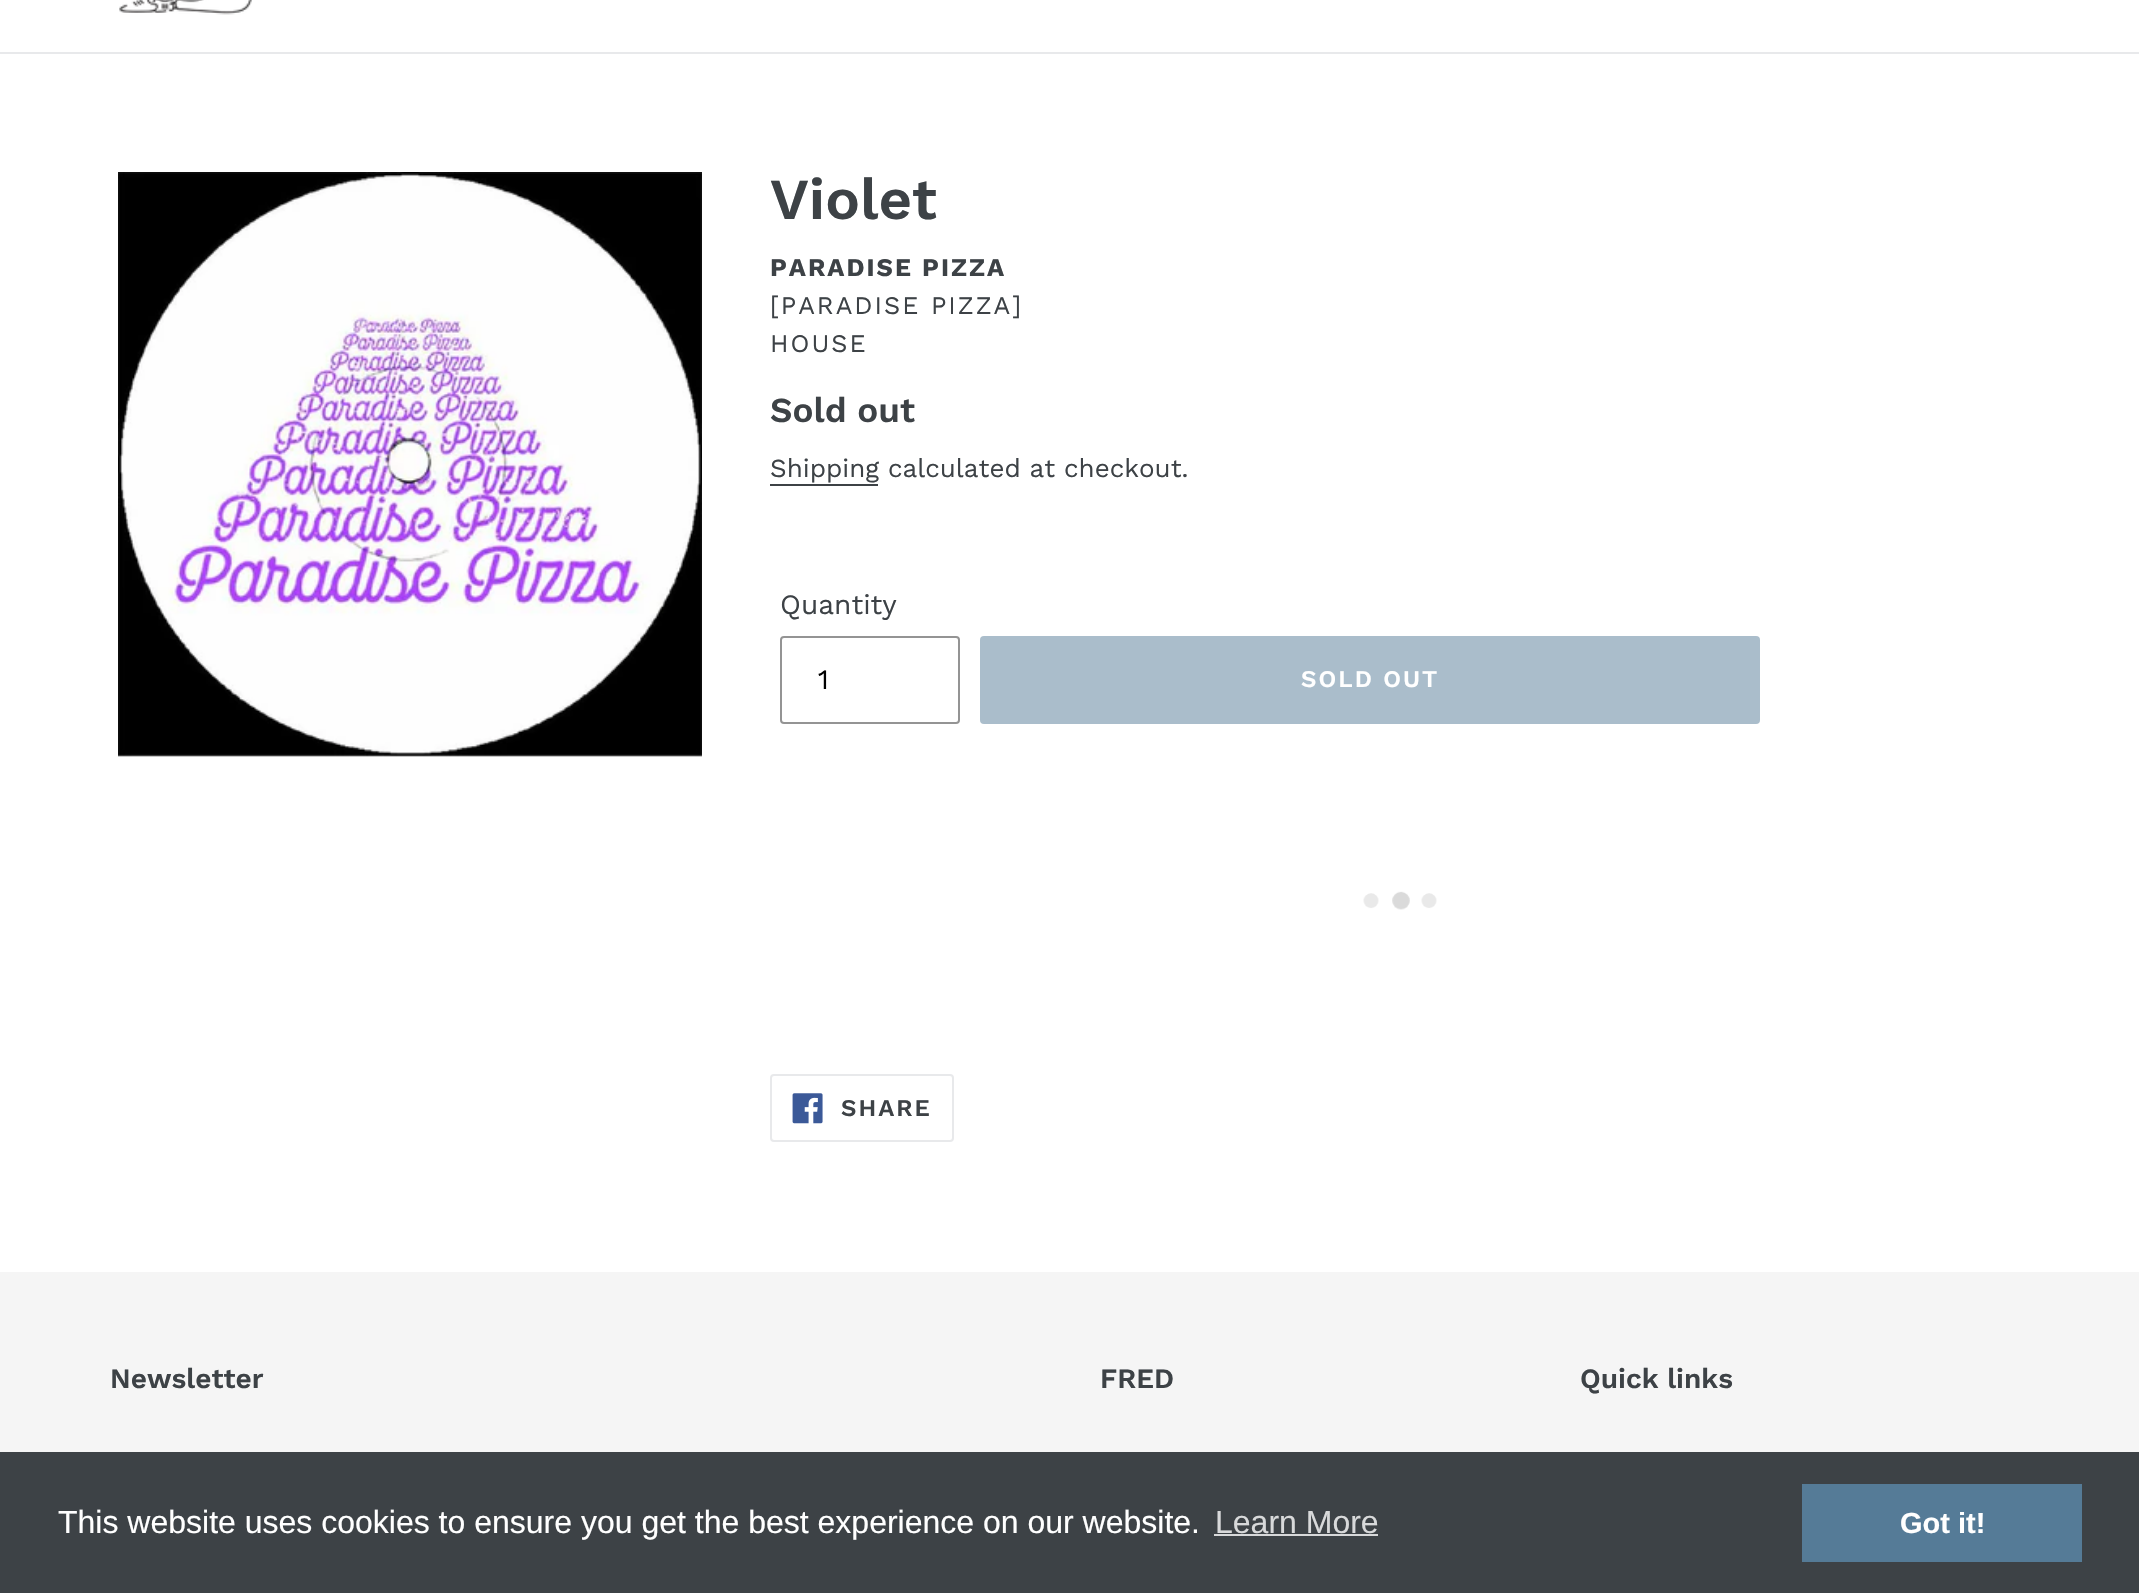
#include "include/core/SkBlurTypes.h"
#include "include/core/SkCanvas.h"
#include "include/core/SkData.h"
#include "include/core/SkFont.h"
#include "include/core/SkFontMgr.h"
#include "include/core/SkImage.h"
#include "include/core/SkMaskFilter.h"
#include "include/core/SkPaint.h"
#include "include/core/SkPathBuilder.h"
#include "include/core/SkTextBlob.h"
#include "include/effects/SkDashPathEffect.h"
#include "include/effects/SkGradientShader.h"
#include "include/utils/SkParsePath.h"

extern sk_sp<SkFontMgr> fontMgr;

static SkFont font(const char* family, int weight, float size, bool italic = false) {
    SkFontStyle style(weight, SkFontStyle::kNormal_Width,
        italic ? SkFontStyle::kItalic_Slant : SkFontStyle::kUpright_Slant);
    SkFont result(fontMgr->matchFamilyStyle(family, style), size);
    result.setSubpixel(true);
    return result;
}

static void drawLabel(SkCanvas* canvas, const char* s, float x, float y, const SkFont& font, SkColor color) {
    SkPaint ink(SkColor4f::FromColor(color));
    ink.setAntiAlias(true);
    canvas->drawString(s, x, y, font, ink);
}

static void drawTracked(SkCanvas* canvas, const char* s, float x, float y, const SkFont& font, const SkPaint& ink, float letter, float word) {
    std::vector<SkGlyphID> glyphs(font.countText(s, strlen(s), SkTextEncoding::kUTF8));
    std::vector<float> xs(glyphs.size());
    font.textToGlyphs(s, strlen(s), SkTextEncoding::kUTF8, glyphs);
    font.getXPos(glyphs, xs, x);
    float extra = 0;
    for (size_t i = 0; i < glyphs.size(); i++) {
        xs[i] += extra;
        extra += letter + word * (glyphs[i] == font.unicharToGlyph(' '));
    }
    canvas->drawTextBlob(SkTextBlob::MakeFromPosHGlyphs(glyphs, xs, y, font), 0, 0, ink);
}

static void fillRect(SkCanvas* canvas, float x, float y, float w, float h, SkColor color) {
    SkPaint ink(SkColor4f::FromColor(color));
    ink.setAntiAlias(true);
    canvas->drawRect(SkRect::MakeXYWH(x, y, w, h), ink);
}

static void fillRRect(SkCanvas* canvas, float x, float y, float w, float h, float radius, SkColor color) {
    SkPaint ink(SkColor4f::FromColor(color));
    ink.setAntiAlias(true);
    canvas->drawRoundRect(SkRect::MakeXYWH(x, y, w, h), radius, radius, ink);
}

static void drawPhoto(SkCanvas* canvas, const char* path, float x, float y, float w, float h) {
    auto image = SkImages::DeferredFromEncodedData(SkData::MakeFromFileName(path));
    canvas->drawImageRect(image, SkRect::MakeXYWH(x, y, w, h), SkSamplingOptions());
}

void draw(SkCanvas* canvas) {
    SkPaint paint;
    paint.setAntiAlias(true);
    canvas->clear(0xFFFFFFFF);
    fillRect(canvas, 0, 52, 2139, 2, 0xFFE8E9EB);
    drawPhoto(canvas, "assets/img1.png", 119, 0, 133, 15);
    drawPhoto(canvas, "assets/img2.png", 118, 172, 584, 585);
    SkFont font1 = font("Work Sans", 600, 58);
    drawLabel(canvas, "Violet", 770, 219, font1, 0xFF3D4246);
    SkFont font2 = font("Work Sans", 700, 25.25f);
    paint.setColor(0xFF3D4246);
    drawTracked(canvas, "PARADISE PIZZA", 770, 276, font2, paint, 2, 0);
    SkFont font3 = font("Work Sans", 400, 25.25f);
    drawTracked(canvas, "[PARADISE PIZZA]", 770, 314, font3, paint, 2, 0);
    drawTracked(canvas, "HOUSE", 770, 352, font3, paint, 2, 0);
    SkFont font4 = font("Work Sans", 600, 35);
    drawLabel(canvas, "Sold out", 770, 422, font4, 0xFF3D4246);
    SkFont font5 = font("Work Sans", 400, 26);
    drawLabel(canvas, "Shipping calculated at checkout.", 770, 477, font5, 0xFF3D4246);
    fillRect(canvas, 770, 484, 108, 2, 0xFF3D4246);
    SkFont font6 = font("Work Sans", 400, 28);
    drawLabel(canvas, "Quantity", 780, 614, font6, 0xFF3D4246);
    paint.setStroke(true);
    paint.setStrokeWidth(2);
    paint.setColor(0xFF949494);
    canvas->drawRoundRect(SkRect::MakeXYWH(781, 637, 178, 86), 3, 3, paint);
    drawLabel(canvas, "1", 818, 689, font6, 0xFF000000);
    fillRRect(canvas, 980, 636, 780, 88, 4, 0xFFAABDCB);
    SkFont font7 = font("Work Sans", 600, 24);
    paint.setStroke(false);
    paint.setColor(0xFFFFFFFF);
    drawTracked(canvas, "SOLD OUT", 1301, 687, font7, paint, 2, 0);
    drawPhoto(canvas, "assets/img3.png", 1363, 891, 74, 19);
    paint.setStroke(true);
    paint.setColor(0xFFE8E9EB);
    canvas->drawRoundRect(SkRect::MakeXYWH(771, 1075, 182, 66), 3, 3, paint);
    drawPhoto(canvas, "assets/img4.png", 792, 1093, 31, 31);
    paint.setStroke(false);
    paint.setColor(0xFF3D4246);
    drawTracked(canvas, "SHARE", 841, 1116, font7, paint, 2, 0);
    fillRect(canvas, 0, 1272, 2139, 180, 0xFFF5F5F5);
    SkFont font8 = font("Work Sans", 600, 28);
    drawLabel(canvas, "Newsletter", 110, 1388, font8, 0xFF3D4246);
    drawLabel(canvas, "FRED", 1100, 1388, font8, 0xFF3D4246);
    drawLabel(canvas, "Quick links", 1580, 1388, font8, 0xFF3D4246);
    fillRect(canvas, 0, 1452, 2139, 141, 0xFF3D4246);
    SkFont font9 = font("Liberation Sans", 400, 32);
    drawLabel(canvas, "This website uses cookies to ensure you get the best experience on our website.", 58, 1533, font9, 0xFFFFFFFF);
    drawLabel(canvas, "Learn More", 1215, 1533, font9, 0xFFD8D9DA);
    fillRect(canvas, 1214, 1534, 164, 2, 0xFFD8D9DA);
    fillRect(canvas, 1802, 1484, 280, 78, 0xFF557B97);
    SkFont font10 = font("Liberation Sans", 700, 29);
    drawLabel(canvas, "Got it!", 1900, 1533, font10, 0xFFFFFFFF);
}
